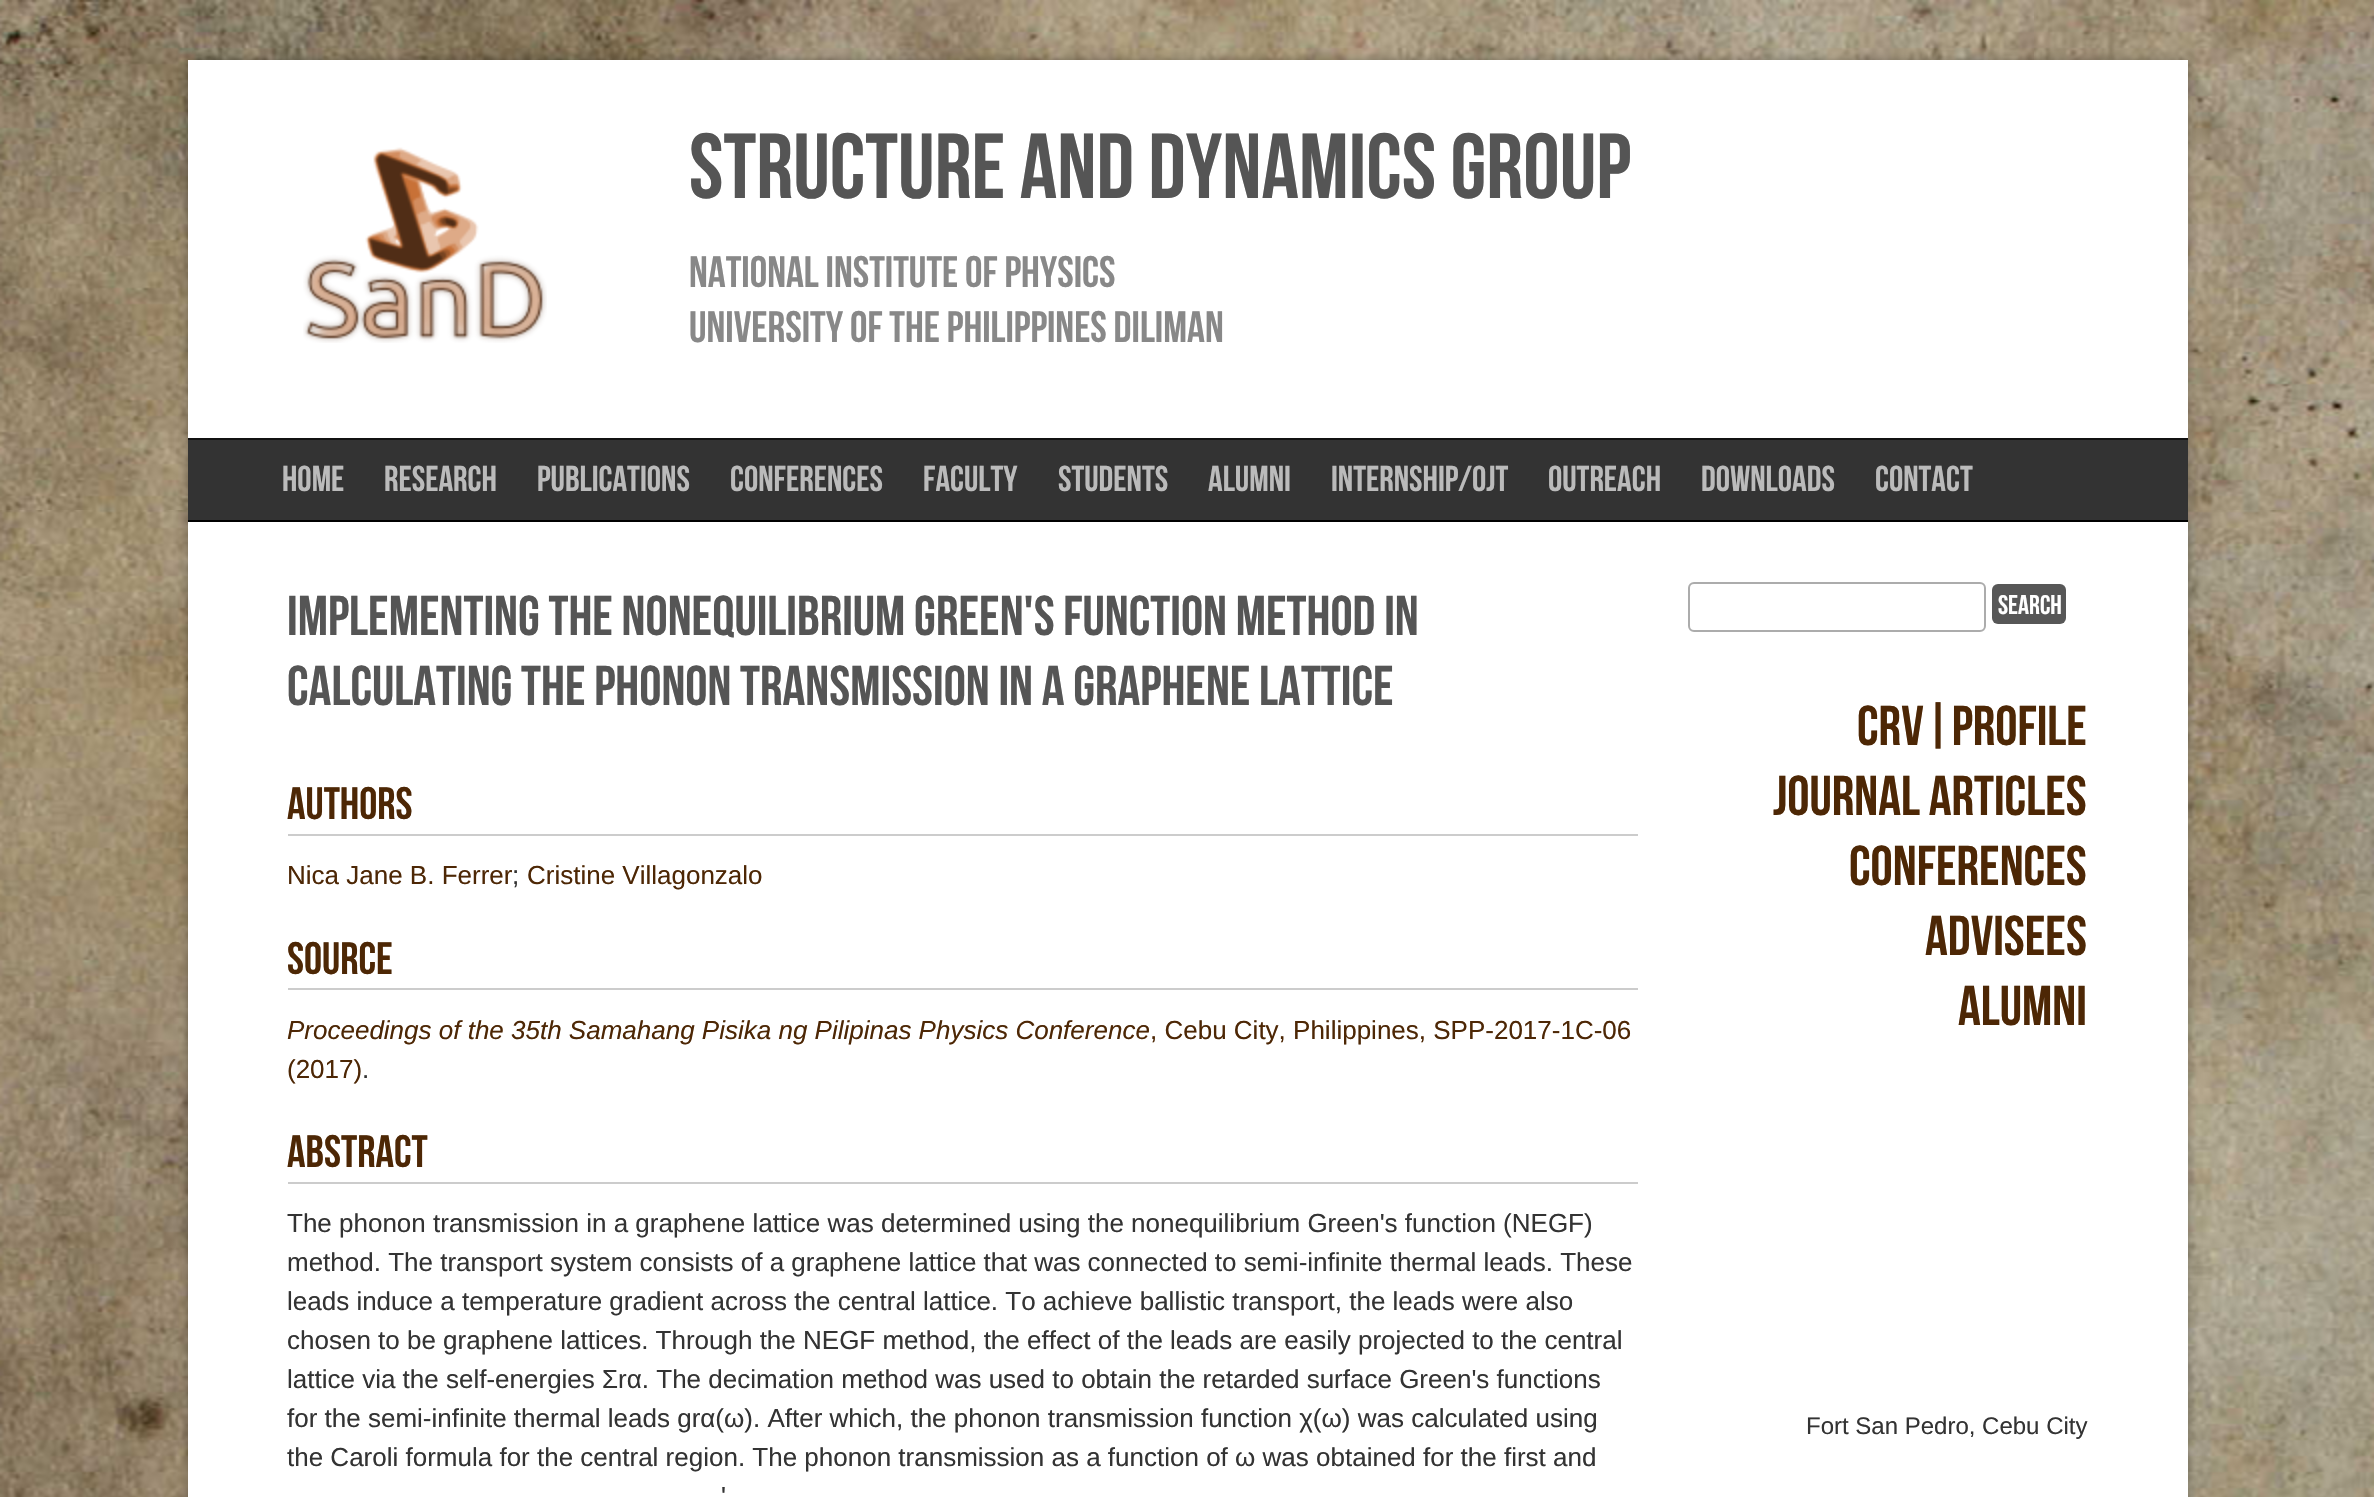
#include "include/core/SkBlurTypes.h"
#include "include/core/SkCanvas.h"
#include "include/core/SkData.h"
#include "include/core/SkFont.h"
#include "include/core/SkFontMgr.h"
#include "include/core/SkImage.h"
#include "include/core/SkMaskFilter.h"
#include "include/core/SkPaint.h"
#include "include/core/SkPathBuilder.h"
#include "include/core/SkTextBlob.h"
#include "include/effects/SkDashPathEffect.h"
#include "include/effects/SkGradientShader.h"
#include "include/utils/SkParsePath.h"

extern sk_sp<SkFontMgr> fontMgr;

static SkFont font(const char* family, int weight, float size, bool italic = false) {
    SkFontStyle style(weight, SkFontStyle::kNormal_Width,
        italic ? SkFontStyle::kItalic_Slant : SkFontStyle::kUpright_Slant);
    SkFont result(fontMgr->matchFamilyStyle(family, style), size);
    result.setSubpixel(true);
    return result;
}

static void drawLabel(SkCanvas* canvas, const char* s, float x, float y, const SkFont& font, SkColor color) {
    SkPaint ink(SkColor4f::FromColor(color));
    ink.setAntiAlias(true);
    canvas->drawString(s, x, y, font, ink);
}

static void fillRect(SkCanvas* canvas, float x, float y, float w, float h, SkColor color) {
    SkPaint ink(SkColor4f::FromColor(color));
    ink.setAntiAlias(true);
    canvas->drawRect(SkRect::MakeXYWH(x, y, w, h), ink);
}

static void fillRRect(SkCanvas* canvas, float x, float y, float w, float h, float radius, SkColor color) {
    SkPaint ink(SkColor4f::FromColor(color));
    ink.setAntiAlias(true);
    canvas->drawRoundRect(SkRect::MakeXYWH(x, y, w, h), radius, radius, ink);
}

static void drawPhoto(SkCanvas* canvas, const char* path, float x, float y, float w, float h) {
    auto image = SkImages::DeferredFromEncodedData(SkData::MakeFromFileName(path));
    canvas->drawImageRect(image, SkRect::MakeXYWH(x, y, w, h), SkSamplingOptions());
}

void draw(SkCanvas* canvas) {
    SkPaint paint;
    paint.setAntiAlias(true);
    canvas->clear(0xFFFFFFFF);
    drawPhoto(canvas, "assets/img1.png", 0, 0, 2374, 1497);
    paint.setColor(0x4D000000);
    paint.setMaskFilter(SkMaskFilter::MakeBlur(kNormal_SkBlurStyle, 5));
    canvas->drawRect(SkRect::MakeXYWH(188, 60, 2000, 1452), paint);
    paint.setMaskFilter(nullptr);
    fillRect(canvas, 188, 60, 2000, 1437, 0xFFFFFFFF);
    drawPhoto(canvas, "assets/img2.png", 303, 147, 244, 196);
    SkFont font1 = font("Bebas Neue", 400, 92);
    drawLabel(canvas, "Structure and Dynamics Group", 689, 198, font1, 0xFF555555);
    SkFont font2 = font("Bebas Neue", 400, 44);
    drawLabel(canvas, "National Institute of Physics", 689, 287, font2, 0xFF888888);
    drawLabel(canvas, "University of the Philippines Diliman", 689, 342, font2, 0xFF888888);
    fillRect(canvas, 188, 440, 2000, 80, 0xFF333333);
    fillRect(canvas, 188, 438, 2000, 2, 0xFF111111);
    fillRect(canvas, 188, 520, 2000, 2, 0xFF000000);
    SkFont font3 = font("Bebas Neue", 400, 36);
    drawLabel(canvas, "HOME", 282, 491, font3, 0xFFBBBBBB);
    drawLabel(canvas, "RESEARCH", 384, 491, font3, 0xFFBBBBBB);
    drawLabel(canvas, "PUBLICATIONS", 537, 491, font3, 0xFFBBBBBB);
    drawLabel(canvas, "CONFERENCES", 730, 491, font3, 0xFFBBBBBB);
    drawLabel(canvas, "FACULTY", 923, 491, font3, 0xFFBBBBBB);
    drawLabel(canvas, "STUDENTS", 1058, 491, font3, 0xFFBBBBBB);
    drawLabel(canvas, "ALUMNI", 1208, 491, font3, 0xFFBBBBBB);
    drawLabel(canvas, "INTERNSHIP/OJT", 1331, 491, font3, 0xFFBBBBBB);
    drawLabel(canvas, "OUTREACH", 1548, 491, font3, 0xFFBBBBBB);
    drawLabel(canvas, "DOWNLOADS", 1701, 491, font3, 0xFFBBBBBB);
    drawLabel(canvas, "CONTACT", 1875, 491, font3, 0xFFBBBBBB);
    SkFont font4 = font("Bebas Neue", 400, 56);
    drawLabel(canvas, "Implementing the nonequilibrium Green's function method in", 287, 635, font4, 0xFF555555);
    drawLabel(canvas, "calculating the phonon transmission in a graphene lattice", 287, 705, font4, 0xFF555555);
    fillRect(canvas, 288, 834, 1350, 2, 0xFFCCCCCC);
    SkFont font5 = font("Bebas Neue", 400, 45.5f);
    drawLabel(canvas, "Authors", 287, 819, font5, 0xFF4D2705);
    SkFont font6 = font("Liberation Sans", 400, 26);
    drawLabel(canvas, "Nica Jane B. Ferrer", 287, 884, font6, 0xFF4D2705);
    drawLabel(canvas, ";", 512, 884, font6, 0xFF333333);
    drawLabel(canvas, "Cristine Villagonzalo", 527, 884, font6, 0xFF4D2705);
    fillRect(canvas, 288, 988, 1350, 2, 0xFFCCCCCC);
    drawLabel(canvas, "Source", 287, 974, font5, 0xFF4D2705);
    SkFont font7 = font("Liberation Sans", 400, 26, true);
    drawLabel(canvas, "Proceedings of the 35th Samahang Pisika ng Pilipinas Physics Conference", 287, 1039, font7, 0xFF4D2705);
    drawLabel(canvas, ", Cebu City, Philippines, SPP-2017-1C-06", 1150, 1039, font6, 0xFF4D2705);
    drawLabel(canvas, "(2017)", 287, 1078, font6, 0xFF4D2705);
    drawLabel(canvas, ".", 362, 1078, font6, 0xFF333333);
    fillRect(canvas, 288, 1182, 1350, 2, 0xFFCCCCCC);
    drawLabel(canvas, "Abstract", 287, 1167, font5, 0xFF4D2705);
    drawLabel(canvas, "The phonon transmission in a graphene lattice was determined using the nonequilibrium Green's function (NEGF)", 287, 1232, font6, 0xFF333333);
    drawLabel(canvas, "method. The transport system consists of a graphene lattice that was connected to semi-infinite thermal leads. These", 287, 1271, font6, 0xFF333333);
    drawLabel(canvas, "leads induce a temperature gradient across the central lattice. To achieve ballistic transport, the leads were also", 287, 1310, font6, 0xFF333333);
    drawLabel(canvas, "chosen to be graphene lattices. Through the NEGF method, the effect of the leads are easily projected to the central", 287, 1349, font6, 0xFF333333);
    drawLabel(canvas, "lattice via the self-energies Σrα. The decimation method was used to obtain the retarded surface Green's functions", 287, 1388, font6, 0xFF333333);
    drawLabel(canvas, "for the semi-infinite thermal leads grα(ω). After which, the phonon transmission function χ(ω) was calculated using", 287, 1427, font6, 0xFF333333);
    drawLabel(canvas, "the Caroli formula for the central region. The phonon transmission as a function of ω was obtained for the first and", 287, 1466, font6, 0xFF333333);
    drawLabel(canvas, "'", 721, 1505, font6, 0xFF333333);
    paint.setStroke(true);
    paint.setStrokeWidth(2);
    paint.setColor(0xFFACACAC);
    canvas->drawRoundRect(SkRect::MakeXYWH(1689, 583, 296, 48), 5, 5, paint);
    fillRRect(canvas, 1992, 584, 74, 40, 6, 0xFF575757);
    SkFont font8 = font("Bebas Neue", 400, 27);
    drawLabel(canvas, "Search", 1998, 614, font8, 0xFFFFFFFF);
    drawLabel(canvas, "CRV|Profile", 1857, 745, font4, 0xFF4D2705);
    drawLabel(canvas, "Journal Articles", 1773, 815, font4, 0xFF4D2705);
    drawLabel(canvas, "Conferences", 1849, 885, font4, 0xFF4D2705);
    drawLabel(canvas, "Advisees", 1925, 955, font4, 0xFF4D2705);
    drawLabel(canvas, "Alumni", 1958, 1025, font4, 0xFF4D2705);
    SkFont font9 = font("Liberation Sans", 400, 24);
    drawLabel(canvas, "Fort San Pedro, Cebu City", 1806, 1434, font9, 0xFF333333);
}
